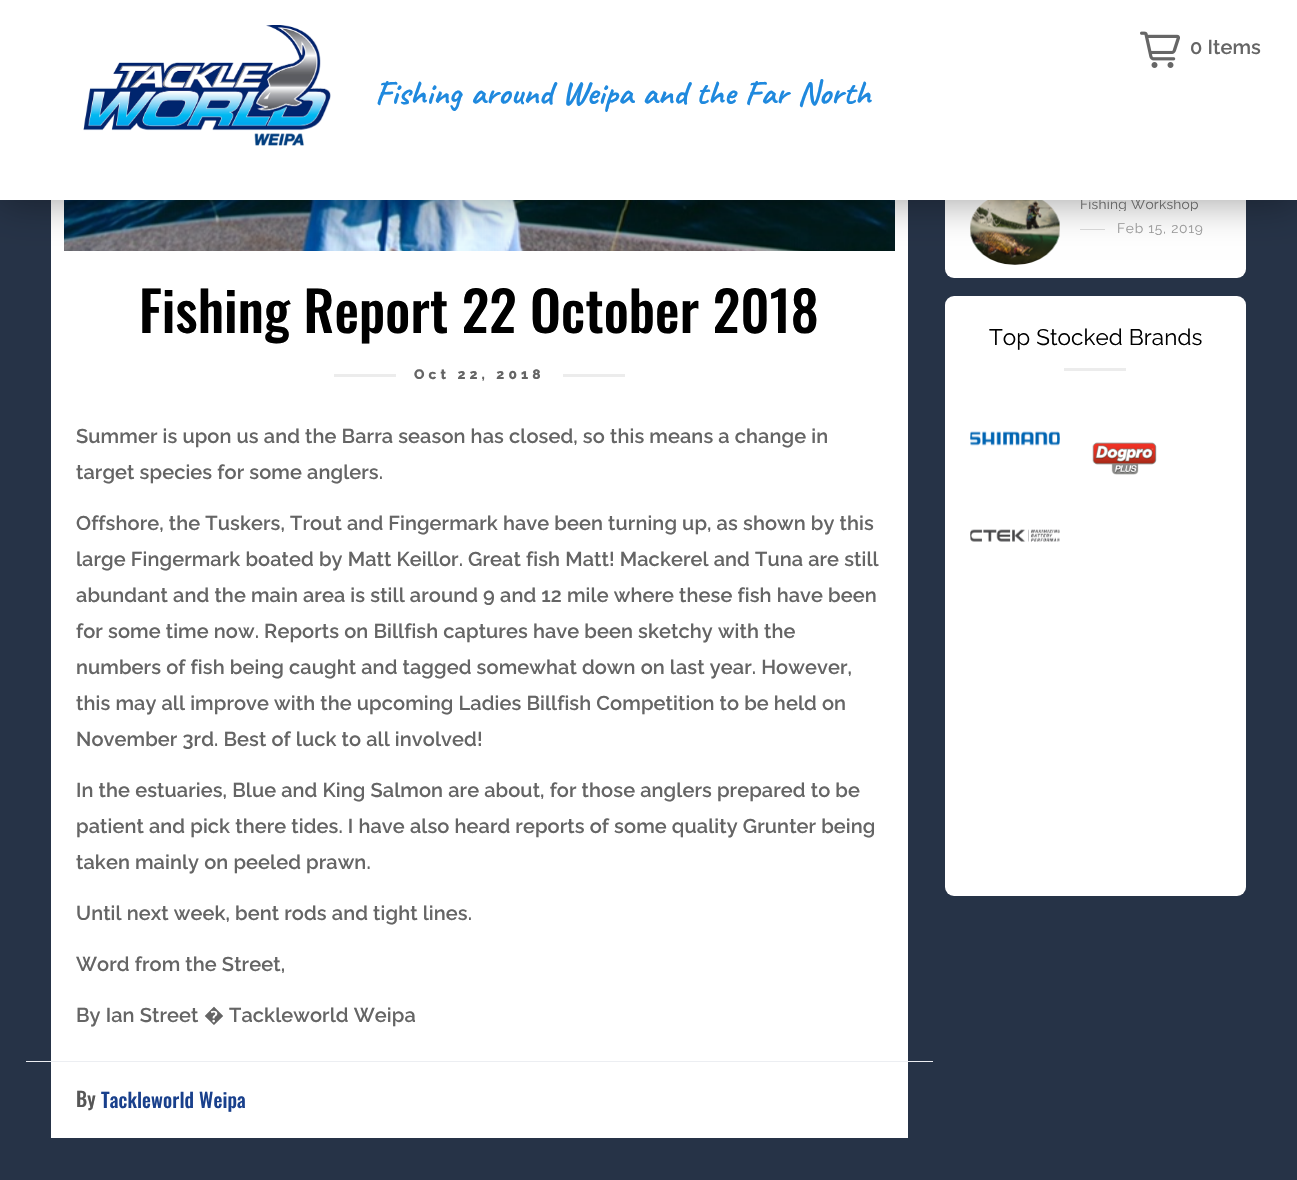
#include "include/core/SkBlurTypes.h"
#include "include/core/SkCanvas.h"
#include "include/core/SkData.h"
#include "include/core/SkFont.h"
#include "include/core/SkFontMgr.h"
#include "include/core/SkImage.h"
#include "include/core/SkMaskFilter.h"
#include "include/core/SkPaint.h"
#include "include/core/SkPathBuilder.h"
#include "include/core/SkTextBlob.h"
#include "include/effects/SkDashPathEffect.h"
#include "include/effects/SkGradientShader.h"
#include "include/utils/SkParsePath.h"

extern sk_sp<SkFontMgr> fontMgr;

static SkFont font(const char* family, int weight, float size, bool italic = false) {
    SkFontStyle style(weight, SkFontStyle::kNormal_Width,
        italic ? SkFontStyle::kItalic_Slant : SkFontStyle::kUpright_Slant);
    SkFont result(fontMgr->matchFamilyStyle(family, style), size);
    result.setSubpixel(true);
    return result;
}

static void drawTracked(SkCanvas* canvas, const char* s, float x, float y, const SkFont& font, const SkPaint& ink, float letter, float word) {
    std::vector<SkGlyphID> glyphs(font.countText(s, strlen(s), SkTextEncoding::kUTF8));
    std::vector<float> xs(glyphs.size());
    font.textToGlyphs(s, strlen(s), SkTextEncoding::kUTF8, glyphs);
    font.getXPos(glyphs, xs, x);
    float extra = 0;
    for (size_t i = 0; i < glyphs.size(); i++) {
        xs[i] += extra;
        extra += letter + word * (glyphs[i] == font.unicharToGlyph(' '));
    }
    canvas->drawTextBlob(SkTextBlob::MakeFromPosHGlyphs(glyphs, xs, y, font), 0, 0, ink);
}

static void fillRect(SkCanvas* canvas, float x, float y, float w, float h, SkColor color) {
    SkPaint ink(SkColor4f::FromColor(color));
    ink.setAntiAlias(true);
    canvas->drawRect(SkRect::MakeXYWH(x, y, w, h), ink);
}

static void fillRRect(SkCanvas* canvas, float x, float y, float w, float h, float radius, SkColor color) {
    SkPaint ink(SkColor4f::FromColor(color));
    ink.setAntiAlias(true);
    canvas->drawRoundRect(SkRect::MakeXYWH(x, y, w, h), radius, radius, ink);
}

static void drawPhoto(SkCanvas* canvas, const char* path, float x, float y, float w, float h) {
    auto image = SkImages::DeferredFromEncodedData(SkData::MakeFromFileName(path));
    canvas->drawImageRect(image, SkRect::MakeXYWH(x, y, w, h), SkSamplingOptions());
}

static SkPath parsePath(const char* data, bool evenOdd = false) {
    SkPath result = *SkParsePath::FromSVGString(data);
    if (evenOdd) result.setFillType(SkPathFillType::kEvenOdd);
    return result;
}

void draw(SkCanvas* canvas) {
    SkPaint paint;
    paint.setAntiAlias(true);
    canvas->clear(0xFF263347);
    fillRRect(canvas, 945, -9, 301, 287, 9, 0xFFFFFFFF);
    drawPhoto(canvas, "assets/img3.png", 970, 200, 90, 65);
    fillRect(canvas, 1080, 229, 25, 1, 0xFFDCDCDC);
    drawPhoto(canvas, "assets/img4.png", 64, 200, 831, 51);
    paint.setColor(0xFFFFFFFF);
    canvas->drawPath(parsePath("M64-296H895V251H908V-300C908-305 904-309 899-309H60C55-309 51-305 51-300V251H64Z"), paint);
    fillRect(canvas, 51, 251, 857, 887, 0xFFFFFFFF);
    paint.setColor(0x59000000);
    paint.setMaskFilter(SkMaskFilter::MakeBlur(kNormal_SkBlurStyle, 19));
    canvas->drawRect(SkRect::MakeXYWH(0, 3, 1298, 200), paint);
    paint.setMaskFilter(nullptr);
    canvas->save();
    canvas->clipRect(SkRect::MakeXYWH(1080, 193, 141, 18));
    SkFont font1 = font("Raleway", 400, 13.75f);
    paint.setColor(0xFF656565);
    drawTracked(canvas, "Fishing Workshop", 1080, 209, font1, paint, 0.25f, 0);
    canvas->restore();
    fillRect(canvas, 0, 0, 1297, 200, 0xFFFFFFFF);
    drawPhoto(canvas, "assets/img1.png", 83, 25, 248, 121);
    drawPhoto(canvas, "assets/img2.png", 1140, 31, 40, 37);
    SkFont font2 = font("Raleway", 600, 20);
    drawTracked(canvas, "0 Items", 1190, 54, font2, paint, 0.1f, 0);
    SkFont font3 = font("Caveat", 700, 34);
    paint.setColor(0xFF1F89DE);
    drawTracked(canvas, "Fishing around Weipa and the Far North", 375, 104, font3, paint, 0.1f, 1);
    paint.setColor(0xFF999999);
    drawTracked(canvas, "Feb 15, 2019", 1117, 233, font1, paint, 0.75f, 0);
    SkFont font4 = font("Oswald", 500, 55);
    paint.setColor(0xFF000000);
    drawTracked(canvas, "Fishing Report 22 October 2018", 139, 333, font4, paint, 0.1f, 0);
    fillRect(canvas, 334, 374, 62, 3, 0xFFECECEC);
    SkFont font5 = font("Raleway", 800, 13.75f);
    paint.setColor(0xFF656565);
    drawTracked(canvas, "Oct 22, 2018", 414, 379, font5, paint, 4.1f, 0);
    fillRect(canvas, 563, 374, 62, 3, 0xFFECECEC);
    drawTracked(canvas, "Summer is upon us and the Barra season has closed, so this means a change in", 76, 443, font2, paint, 0.1f, 0);
    drawTracked(canvas, "target species for some anglers.", 76, 479, font2, paint, 0.1f, 0);
    drawTracked(canvas, "Offshore, the Tuskers, Trout and Fingermark have been turning up, as shown by this", 76, 530, font2, paint, 0.1f, 0);
    drawTracked(canvas, "large Fingermark boated by Matt Keillor. Great fish Matt! Mackerel and Tuna are still", 76, 566, font2, paint, 0.1f, 0);
    drawTracked(canvas, "abundant and the main area is still around 9 and 12 mile where these fish have been", 76, 602, font2, paint, 0.1f, 0);
    drawTracked(canvas, "for some time now. Reports on Billfish captures have been sketchy with the", 76, 638, font2, paint, 0.1f, 0);
    drawTracked(canvas, "numbers of fish being caught and tagged somewhat down on last year. However,", 76, 674, font2, paint, 0.1f, 0);
    drawTracked(canvas, "this may all improve with the upcoming Ladies Billfish Competition to be held on", 76, 710, font2, paint, 0.1f, 0);
    drawTracked(canvas, "November 3rd. Best of luck to all involved!", 76, 746, font2, paint, 0.1f, 0);
    drawTracked(canvas, "In the estuaries, Blue and King Salmon are about, for those anglers prepared to be", 76, 797, font2, paint, 0.1f, 0);
    drawTracked(canvas, "patient and pick there tides. I have also heard reports of some quality Grunter being", 76, 833, font2, paint, 0.1f, 0);
    drawTracked(canvas, "taken mainly on peeled prawn.", 76, 869, font2, paint, 0.1f, 0);
    drawTracked(canvas, "Until next week, bent rods and tight lines.", 76, 920, font2, paint, 0.1f, 0);
    drawTracked(canvas, "Word from the Street,", 76, 971, font2, paint, 0.1f, 0);
    drawTracked(canvas, "By Ian Street", 76, 1022, font2, paint, 0.1f, 0);
    SkFont font6 = font("Noto Sans", 600, 20);
    drawTracked(canvas, "�", 204, 1022, font6, paint, 0.1f, 0);
    drawTracked(canvas, "Tackleworld Weipa", 229, 1022, font2, paint, 0.1f, 0);
    fillRect(canvas, 26, 1061, 907, 1, 0xFFECEEF2);
    SkFont font7 = font("Oswald", 500, 20);
    paint.setColor(0xFF565656);
    drawTracked(canvas, "By", 76, 1107, font7, paint, 0.1f, 0);
    paint.setColor(0xFF19408C);
    drawTracked(canvas, "Tackleworld Weipa", 101, 1108, font7, paint, 0.1f, 0);
    fillRRect(canvas, 945, 296, 301, 600, 9, 0xFFFFFFFF);
    SkFont font8 = font("Raleway", 400, 22.5f);
    paint.setColor(0xFF000000);
    drawTracked(canvas, "Top Stocked Brands", 989, 345, font8, paint, 0.1f, 0);
    fillRect(canvas, 1064, 368, 62, 3, 0xFFECECEC);
    drawPhoto(canvas, "assets/img5.png", 970, 431, 90, 15);
    drawPhoto(canvas, "assets/img6.png", 1092, 442, 65, 33);
    drawPhoto(canvas, "assets/img7.png", 970, 529, 90, 13);
}
